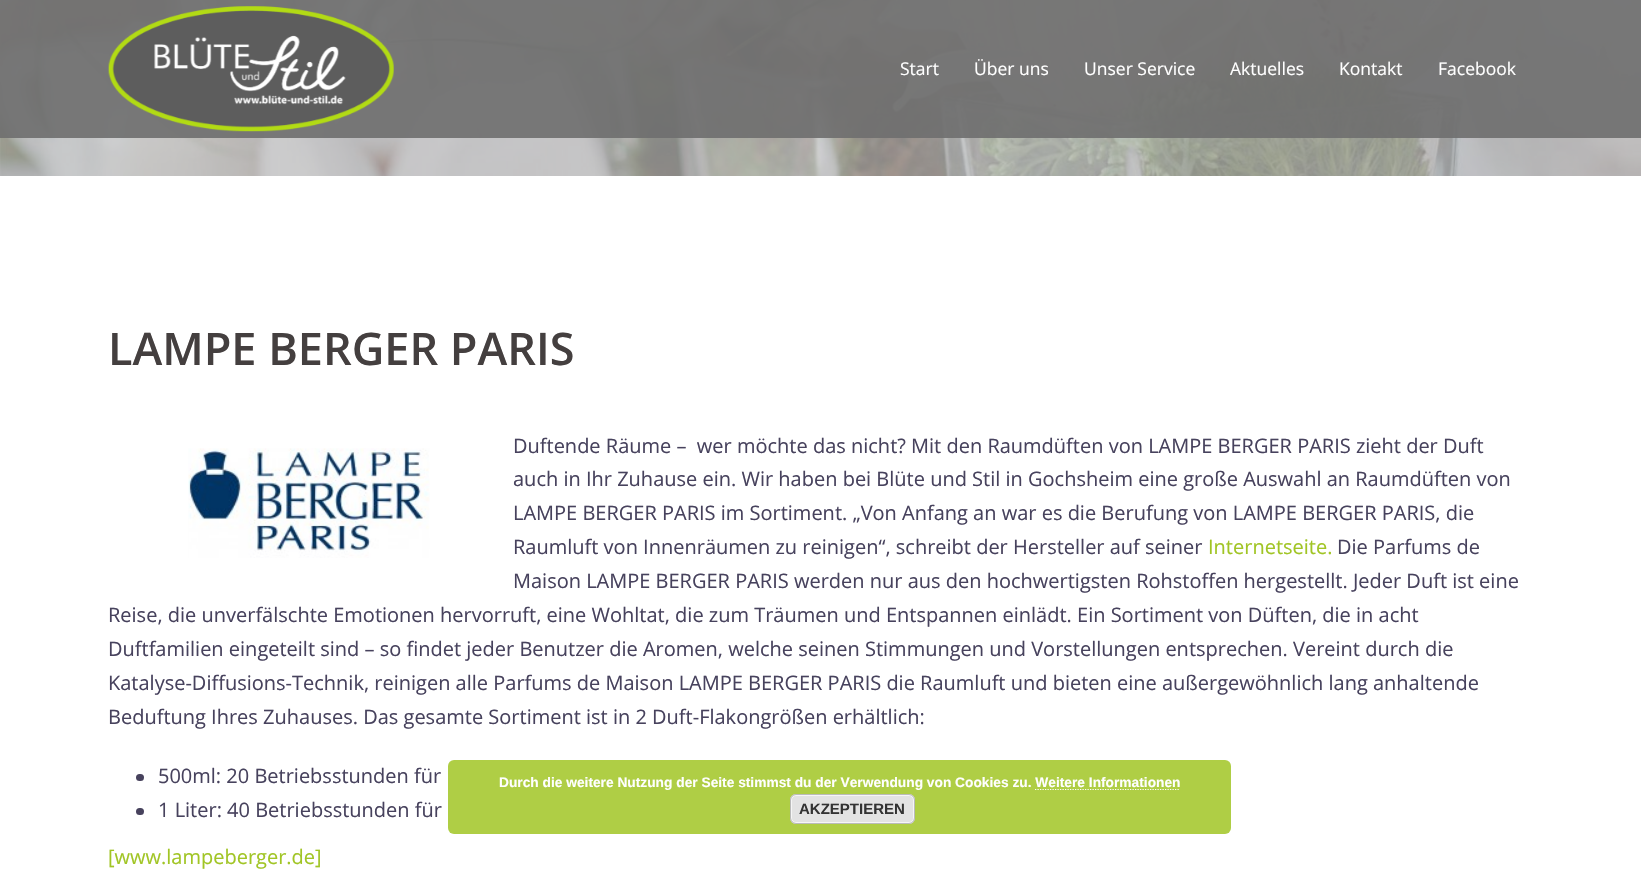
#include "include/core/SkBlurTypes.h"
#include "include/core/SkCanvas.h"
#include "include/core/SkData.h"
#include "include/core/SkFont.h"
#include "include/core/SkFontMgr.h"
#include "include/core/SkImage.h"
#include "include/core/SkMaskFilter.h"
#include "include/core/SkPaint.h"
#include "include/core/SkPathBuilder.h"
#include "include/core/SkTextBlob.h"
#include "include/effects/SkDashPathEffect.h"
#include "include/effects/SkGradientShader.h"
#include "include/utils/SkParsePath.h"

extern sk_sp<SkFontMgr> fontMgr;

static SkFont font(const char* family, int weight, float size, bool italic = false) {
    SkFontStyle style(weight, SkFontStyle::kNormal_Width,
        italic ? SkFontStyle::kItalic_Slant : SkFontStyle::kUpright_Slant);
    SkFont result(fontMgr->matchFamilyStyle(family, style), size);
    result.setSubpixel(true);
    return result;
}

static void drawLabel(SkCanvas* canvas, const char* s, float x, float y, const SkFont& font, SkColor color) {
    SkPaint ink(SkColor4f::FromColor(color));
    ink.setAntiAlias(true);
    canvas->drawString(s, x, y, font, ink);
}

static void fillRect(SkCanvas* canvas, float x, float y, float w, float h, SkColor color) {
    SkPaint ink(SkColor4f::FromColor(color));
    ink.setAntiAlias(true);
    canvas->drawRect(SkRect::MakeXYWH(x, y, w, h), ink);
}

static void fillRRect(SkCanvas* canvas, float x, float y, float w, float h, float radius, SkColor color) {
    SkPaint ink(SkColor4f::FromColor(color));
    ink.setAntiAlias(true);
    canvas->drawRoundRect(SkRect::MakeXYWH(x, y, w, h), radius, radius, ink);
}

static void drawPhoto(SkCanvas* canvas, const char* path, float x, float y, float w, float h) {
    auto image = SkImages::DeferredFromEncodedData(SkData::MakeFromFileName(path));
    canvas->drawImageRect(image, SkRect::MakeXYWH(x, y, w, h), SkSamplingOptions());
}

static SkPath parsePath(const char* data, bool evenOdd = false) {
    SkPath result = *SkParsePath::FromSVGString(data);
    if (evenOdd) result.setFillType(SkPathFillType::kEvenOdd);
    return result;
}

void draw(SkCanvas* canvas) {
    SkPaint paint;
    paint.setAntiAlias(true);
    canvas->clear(0xFFFFFFFF);
    drawPhoto(canvas, "assets/img1.png", 0, 0, 1641, 176);
    fillRect(canvas, 0, 0, 1641, 138, 0xE66E6E6E);
    drawPhoto(canvas, "assets/img2.png", 108, 6, 286, 126);
    SkFont font1 = font("Open Sans", 400, 17.5f);
    drawLabel(canvas, "Start", 900, 75, font1, 0xFFFFFFFF);
    drawLabel(canvas, "Über uns", 974, 75, font1, 0xFFFFFFFF);
    drawLabel(canvas, "Unser Service", 1084, 75, font1, 0xFFFFFFFF);
    drawLabel(canvas, "Aktuelles", 1230, 75, font1, 0xFFFFFFFF);
    drawLabel(canvas, "Kontakt", 1339, 75, font1, 0xFFFFFFFF);
    drawLabel(canvas, "Facebook", 1438, 75, font1, 0xFFFFFFFF);
    SkFont font2 = font("Open Sans", 600, 45);
    drawLabel(canvas, "LAMPE BERGER PARIS", 108, 365, font2, 0xFF443F3F);
    SkFont font3 = font("Open Sans", 400, 20);
    drawLabel(canvas, "Duftende Räume –  wer möchte das nicht? Mit den Raumdüften von LAMPE BERGER PARIS zieht der Duft", 513, 453, font3, 0xFF47425D);
    drawPhoto(canvas, "assets/img3.png", 188, 448, 242, 110);
    drawLabel(canvas, "auch in Ihr Zuhause ein. Wir haben bei Blüte und Stil in Gochsheim eine große Auswahl an Raumdüften von", 513, 486, font3, 0xFF47425D);
    drawLabel(canvas, "LAMPE BERGER PARIS im Sortiment. „Von Anfang an war es die Berufung von LAMPE BERGER PARIS, die", 513, 520, font3, 0xFF47425D);
    drawLabel(canvas, "Raumluft von Innenräumen zu reinigen“, schreibt der Hersteller auf seiner", 513, 554, font3, 0xFF47425D);
    drawLabel(canvas, "Internetseite.", 1208, 554, font3, 0xFFA1C525);
    drawLabel(canvas, "Die Parfums de", 1337, 554, font3, 0xFF47425D);
    drawLabel(canvas, "Maison LAMPE BERGER PARIS werden nur aus den hochwertigsten Rohstoffen hergestellt. Jeder Duft ist eine", 513, 588, font3, 0xFF47425D);
    drawLabel(canvas, "Reise, die unverfälschte Emotionen hervorruft, eine Wohltat, die zum Träumen und Entspannen einlädt. Ein Sortiment von Düften, die in acht", 108, 622, font3, 0xFF47425D);
    drawLabel(canvas, "Duftfamilien eingeteilt sind – so findet jeder Benutzer die Aromen, welche seinen Stimmungen und Vorstellungen entsprechen. Vereint durch die", 108, 656, font3, 0xFF47425D);
    drawLabel(canvas, "Katalyse-Diffusions-Technik, reinigen alle Parfums de Maison LAMPE BERGER PARIS die Raumluft und bieten eine außergewöhnlich lang anhaltende", 108, 690, font3, 0xFF47425D);
    drawLabel(canvas, "Beduftung Ihres Zuhauses. Das gesamte Sortiment ist in 2 Duft-Flakongrößen erhältlich:", 108, 724, font3, 0xFF47425D);
    fillRRect(canvas, 136, 774, 8, 7, 3.5f, 0xFF47425D);
    drawLabel(canvas, "500ml: 20 Betriebsstunden für", 158, 783, font3, 0xFF47425D);
    fillRRect(canvas, 136, 808, 8, 7, 3.5f, 0xFF47425D);
    drawLabel(canvas, "1 Liter: 40 Betriebsstunden für", 158, 817, font3, 0xFF47425D);
    drawLabel(canvas, "[www.lampeberger.de]", 108, 864, font3, 0xFFA1C525);
    fillRRect(canvas, 448, 760, 783, 74, 6, 0xD9A1C525);
    SkFont font4 = font("Liberation Sans", 700, 13.75f);
    drawLabel(canvas, "Durch die weitere Nutzung der Seite stimmst du der Verwendung von Cookies zu. Weitere Informationen", 499, 787, font4, 0xFFFFFFFF);
    paint.setStroke(true);
    paint.setStrokeWidth(1.2f);
    paint.setColor(0xFFFFFFFF);
    paint.setPathEffect(SkDashPathEffect::Make({{1.25f, 1.25f}}, 0));
    canvas->drawPath(parsePath("M1035 789.5H1180"), paint);
    paint.setPathEffect(nullptr);
    fillRRect(canvas, 790, 794, 125, 30, 6, 0xFFE3E3E3);
    paint.setStrokeWidth(1);
    paint.setColor(0xFFF6F6F6);
    canvas->drawRoundRect(SkRect::MakeXYWH(791.5f, 795.5f, 122, 27), 4.5f, 4.5f, paint);
    paint.setColor(0xFFBBBBBB);
    canvas->drawRoundRect(SkRect::MakeXYWH(790.5f, 794.5f, 124, 29), 5.5f, 5.5f, paint);
    SkFont font5 = font("Liberation Sans", 700, 15);
    drawLabel(canvas, "AKZEPTIEREN", 799, 814, font5, 0xFF333333);
}
